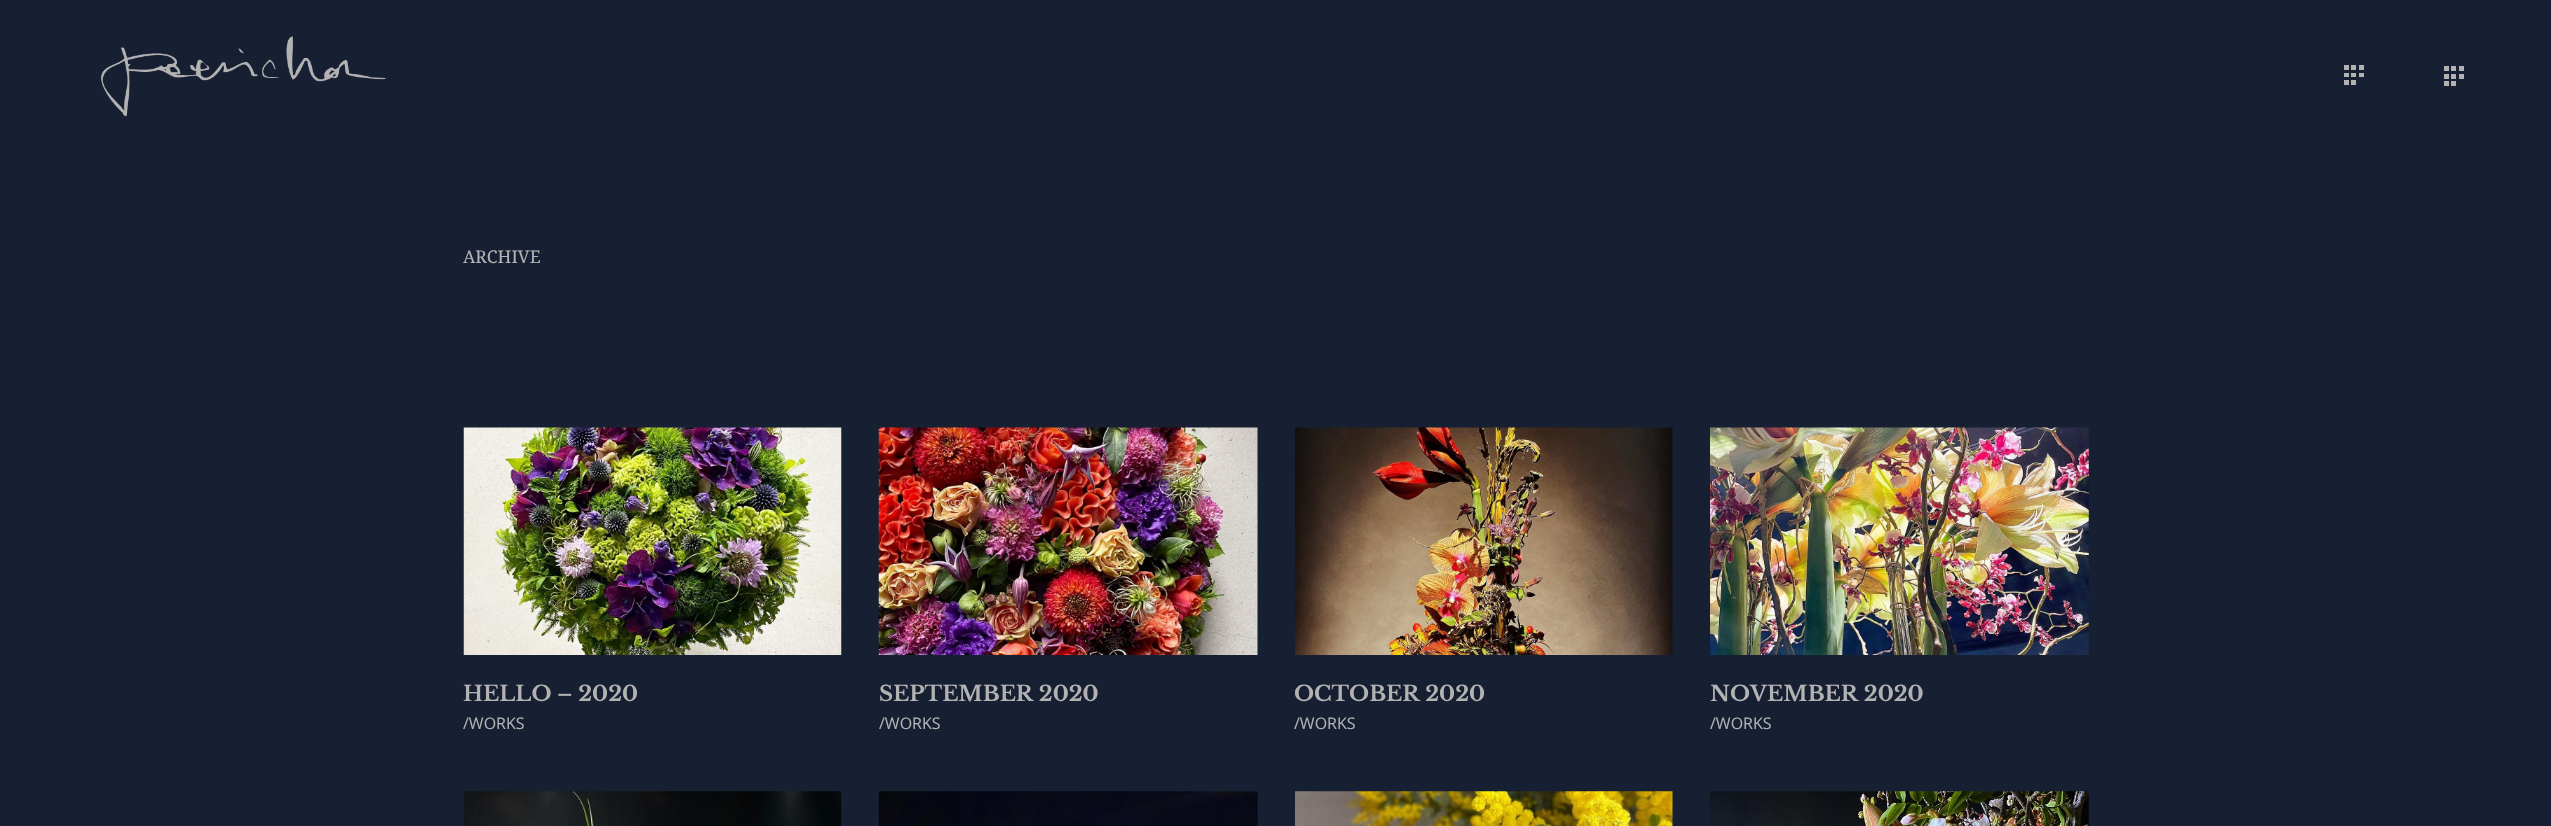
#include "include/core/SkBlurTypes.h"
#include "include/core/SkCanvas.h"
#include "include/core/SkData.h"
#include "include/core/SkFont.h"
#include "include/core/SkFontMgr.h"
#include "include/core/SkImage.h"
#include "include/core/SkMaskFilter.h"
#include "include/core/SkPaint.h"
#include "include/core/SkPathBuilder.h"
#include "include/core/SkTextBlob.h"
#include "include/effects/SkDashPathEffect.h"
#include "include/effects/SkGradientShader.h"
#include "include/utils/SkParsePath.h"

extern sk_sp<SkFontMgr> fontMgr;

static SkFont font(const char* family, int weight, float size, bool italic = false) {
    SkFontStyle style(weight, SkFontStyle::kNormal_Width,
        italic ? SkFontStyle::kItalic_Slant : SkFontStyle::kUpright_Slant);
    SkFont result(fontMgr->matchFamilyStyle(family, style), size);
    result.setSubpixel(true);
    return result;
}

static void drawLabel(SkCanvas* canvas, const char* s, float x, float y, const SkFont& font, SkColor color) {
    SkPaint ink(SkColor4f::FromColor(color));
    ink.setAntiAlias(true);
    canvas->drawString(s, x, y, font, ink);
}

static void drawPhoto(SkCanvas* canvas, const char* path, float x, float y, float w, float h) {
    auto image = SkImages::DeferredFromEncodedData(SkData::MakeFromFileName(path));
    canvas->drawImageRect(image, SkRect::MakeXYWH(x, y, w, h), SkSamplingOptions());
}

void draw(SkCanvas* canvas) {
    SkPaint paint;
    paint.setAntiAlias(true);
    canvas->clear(0xFF171F32);
    drawPhoto(canvas, "assets/img1.png", 101, 36, 285, 81);
    drawPhoto(canvas, "assets/img2.png", 2344, 65, 20, 20);
    drawPhoto(canvas, "assets/img3.png", 2444, 66, 20, 20);
    SkFont font1 = font("Noto Serif", 400, 17.5f);
    drawLabel(canvas, "ARCHIVE", 463, 263, font1, 0xFFB2B2B2);
    drawPhoto(canvas, "assets/img4.png", 463, 427, 379, 228);
    SkFont font2 = font("Libre Baskerville", 700, 21.25f);
    drawLabel(canvas, "HELLO – 2020", 463, 701, font2, 0xFFB2B2B2);
    SkFont font3 = font("Open Sans", 400, 16);
    drawLabel(canvas, "/WORKS", 463, 729, font3, 0xFFB2B2B2);
    drawPhoto(canvas, "assets/img5.png", 878, 427, 380, 228);
    drawLabel(canvas, "SEPTEMBER 2020", 879, 701, font2, 0xFFB2B2B2);
    drawLabel(canvas, "/WORKS", 879, 729, font3, 0xFFB2B2B2);
    drawPhoto(canvas, "assets/img6.png", 1295, 427, 378, 228);
    drawLabel(canvas, "OCTOBER 2020", 1294, 701, font2, 0xFFB2B2B2);
    drawLabel(canvas, "/WORKS", 1294, 729, font3, 0xFFB2B2B2);
    drawPhoto(canvas, "assets/img7.png", 1710, 427, 379, 228);
    drawLabel(canvas, "NOVEMBER 2020", 1710, 701, font2, 0xFFB2B2B2);
    drawLabel(canvas, "/WORKS", 1710, 729, font3, 0xFFB2B2B2);
    drawPhoto(canvas, "assets/img8.png", 463, 791, 379, 35);
    drawPhoto(canvas, "assets/img9.png", 878, 791, 380, 35);
    drawPhoto(canvas, "assets/img10.png", 1295, 791, 378, 35);
    drawPhoto(canvas, "assets/img11.png", 1710, 791, 379, 35);
}
